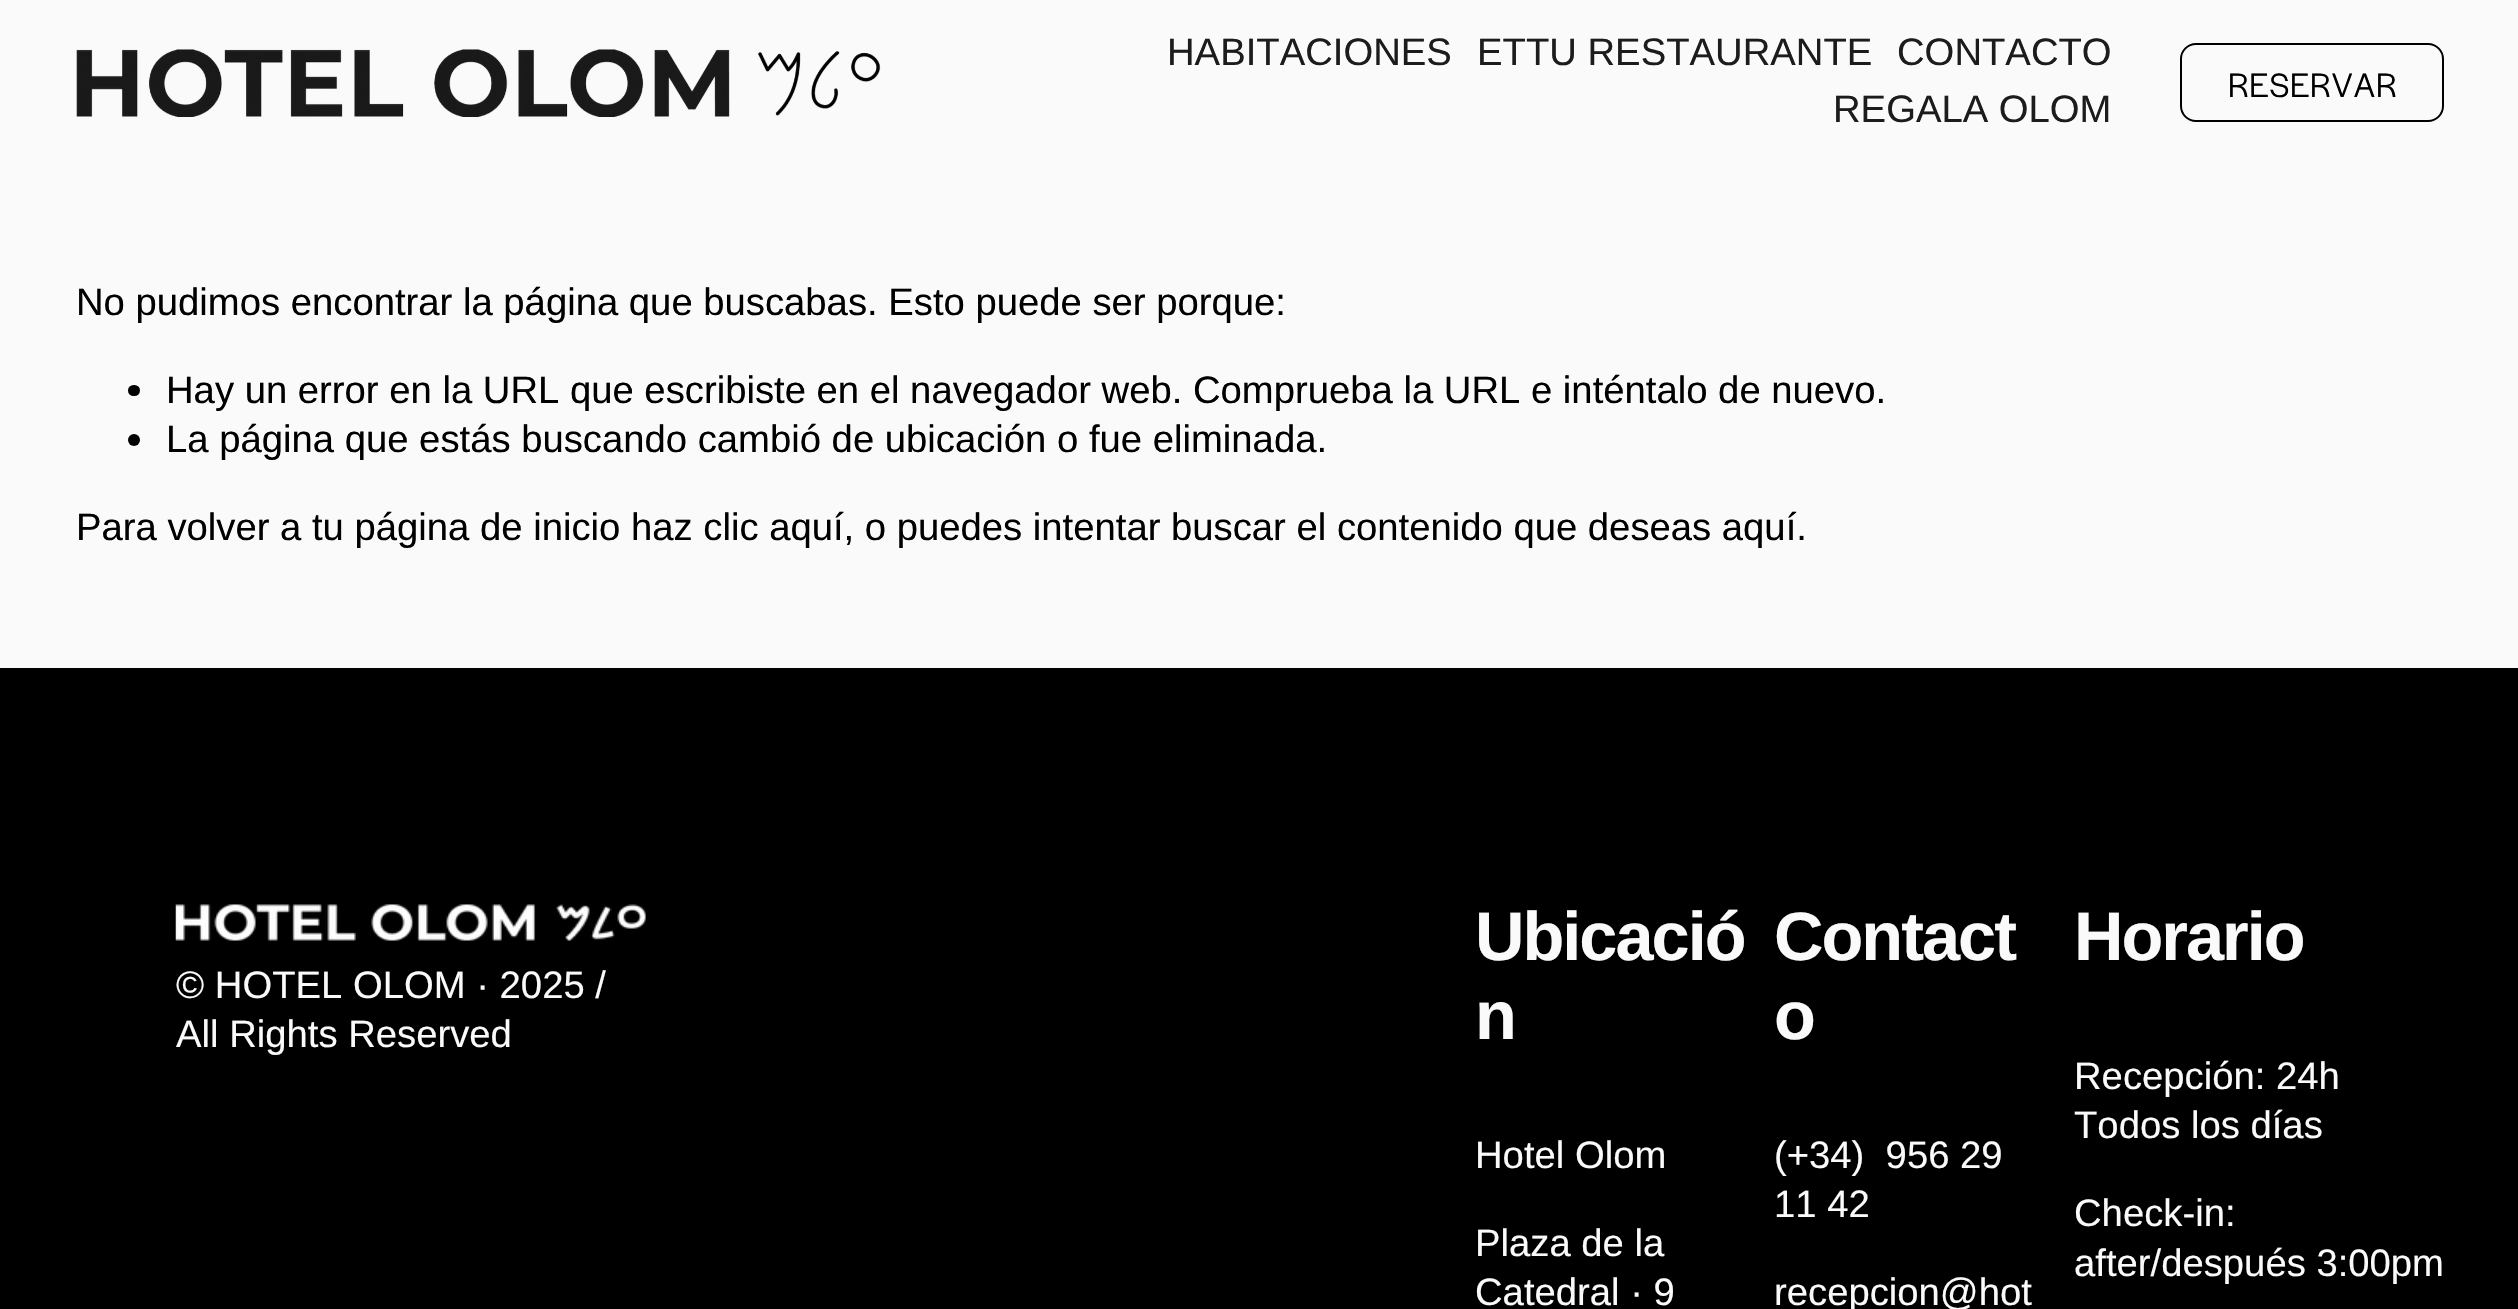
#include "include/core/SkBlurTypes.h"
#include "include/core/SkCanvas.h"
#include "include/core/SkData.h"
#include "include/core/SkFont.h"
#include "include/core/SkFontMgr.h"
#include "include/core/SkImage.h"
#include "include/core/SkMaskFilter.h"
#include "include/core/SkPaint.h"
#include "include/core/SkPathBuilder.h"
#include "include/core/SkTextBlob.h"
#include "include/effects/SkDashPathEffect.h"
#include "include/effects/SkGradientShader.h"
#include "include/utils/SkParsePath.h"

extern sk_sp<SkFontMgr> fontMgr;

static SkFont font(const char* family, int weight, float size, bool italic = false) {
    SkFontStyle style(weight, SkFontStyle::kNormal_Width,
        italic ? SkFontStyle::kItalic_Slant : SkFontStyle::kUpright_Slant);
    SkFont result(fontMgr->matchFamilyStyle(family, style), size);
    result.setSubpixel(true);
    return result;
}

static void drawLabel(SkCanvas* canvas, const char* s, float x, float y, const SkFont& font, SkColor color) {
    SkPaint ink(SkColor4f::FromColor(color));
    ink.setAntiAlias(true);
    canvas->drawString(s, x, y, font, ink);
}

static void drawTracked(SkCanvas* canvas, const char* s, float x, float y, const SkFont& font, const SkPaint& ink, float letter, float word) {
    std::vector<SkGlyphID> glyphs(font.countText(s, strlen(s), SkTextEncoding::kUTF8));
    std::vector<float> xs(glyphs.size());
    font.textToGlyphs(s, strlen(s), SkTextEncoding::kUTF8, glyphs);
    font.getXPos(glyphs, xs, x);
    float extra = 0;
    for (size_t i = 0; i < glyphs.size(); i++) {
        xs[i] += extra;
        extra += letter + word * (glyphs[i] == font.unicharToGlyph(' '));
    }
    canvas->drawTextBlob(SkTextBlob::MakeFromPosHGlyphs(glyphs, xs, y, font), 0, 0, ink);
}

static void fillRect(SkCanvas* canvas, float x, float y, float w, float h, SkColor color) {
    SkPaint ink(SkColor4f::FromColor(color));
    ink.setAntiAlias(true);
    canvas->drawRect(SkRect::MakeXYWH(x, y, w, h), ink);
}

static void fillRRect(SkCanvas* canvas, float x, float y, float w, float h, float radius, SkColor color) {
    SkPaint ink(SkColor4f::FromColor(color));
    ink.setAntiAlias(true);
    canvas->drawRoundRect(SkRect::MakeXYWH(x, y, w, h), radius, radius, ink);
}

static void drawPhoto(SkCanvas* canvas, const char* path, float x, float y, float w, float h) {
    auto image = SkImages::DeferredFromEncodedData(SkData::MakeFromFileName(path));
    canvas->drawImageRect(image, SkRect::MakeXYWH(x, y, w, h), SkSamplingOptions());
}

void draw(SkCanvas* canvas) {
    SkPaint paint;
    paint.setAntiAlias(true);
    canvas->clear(0xFFFAFAFA);
    drawPhoto(canvas, "assets/img1.png", 76, 49, 805, 68);
    SkFont font1 = font("Liberation Sans", 400, 38.25f);
    drawLabel(canvas, "HABITACIONES", 1167, 65, font1, 0xFF1C1C1C);
    drawLabel(canvas, "ETTU RESTAURANTE", 1477, 65, font1, 0xFF1C1C1C);
    drawLabel(canvas, "CONTACTO", 1897, 65, font1, 0xFF1C1C1C);
    drawLabel(canvas, "REGALA OLOM", 1833, 122, font1, 0xFF1C1C1C);
    paint.setStroke(true);
    paint.setStrokeWidth(2);
    paint.setColor(0xFF000000);
    canvas->drawRoundRect(SkRect::MakeXYWH(2181, 44, 262, 77), 15, 15, paint);
    SkFont font2 = font("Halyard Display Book", 400, 35.25f);
    paint.setStroke(false);
    drawTracked(canvas, "RESERVAR", 2228, 97, font2, paint, 0.75f, 0);
    drawLabel(canvas, "No pudimos encontrar la página que buscabas. Esto puede ser porque:", 76, 315, font1, 0xFF000000);
    fillRRect(canvas, 128, 385, 12, 11, 5.5f, 0xFF000000);
    drawLabel(canvas, "Hay un error en la URL que escribiste en el navegador web. Comprueba la URL e inténtalo de nuevo.", 166, 403, font1, 0xFF000000);
    canvas->drawCircle(134, 440, 6, paint);
    drawLabel(canvas, "La página que estás buscando cambió de ubicación o fue eliminada.", 166, 452, font1, 0xFF000000);
    drawLabel(canvas, "Para volver a tu página de inicio haz clic aquí, o puedes intentar buscar el contenido que deseas aquí.", 76, 540, font1, 0xFF000000);
    fillRect(canvas, 0, 668, 2518, 641, 0xFF000000);
    drawPhoto(canvas, "assets/img2.png", 175, 904, 471, 37);
    SkFont font3 = font("Liberation Sans", 700, 68.5f);
    paint.setColor(0xFFFAFAFA);
    drawTracked(canvas, "Ubicació", 1475, 960, font3, paint, -2, 0);
    drawTracked(canvas, "n", 1475, 1039, font3, paint, -2, 0);
    drawLabel(canvas, "Hotel Olom", 1475, 1168, font1, 0xFFFAFAFA);
    drawLabel(canvas, "Plaza de la", 1475, 1256, font1, 0xFFFAFAFA);
    drawLabel(canvas, "Catedral · 9", 1475, 1305, font1, 0xFFFAFAFA);
    drawTracked(canvas, "Contact", 1774, 960, font3, paint, -2, 0);
    drawTracked(canvas, "o", 1774, 1039, font3, paint, -2, 0);
    drawLabel(canvas, "(+34)  956 29", 1774, 1168, font1, 0xFFFAFAFA);
    drawLabel(canvas, "11 42", 1774, 1217, font1, 0xFFFAFAFA);
    drawLabel(canvas, "recepcion@hot", 1774, 1305, font1, 0xFFFAFAFA);
    drawTracked(canvas, "Horario", 2074, 960, font3, paint, -2, 0);
    drawLabel(canvas, "Recepción: 24h", 2074, 1089, font1, 0xFFFAFAFA);
    drawLabel(canvas, "Todos los días", 2074, 1138, font1, 0xFFFAFAFA);
    drawLabel(canvas, "Check-in:", 2074, 1226, font1, 0xFFFAFAFA);
    drawLabel(canvas, "after/después 3:00pm", 2074, 1276, font1, 0xFFFAFAFA);
    drawLabel(canvas, "© HOTEL OLOM · 2025 /", 176, 998, font1, 0xFFFAFAFA);
    drawLabel(canvas, "All Rights Reserved", 176, 1047, font1, 0xFFFAFAFA);
}
